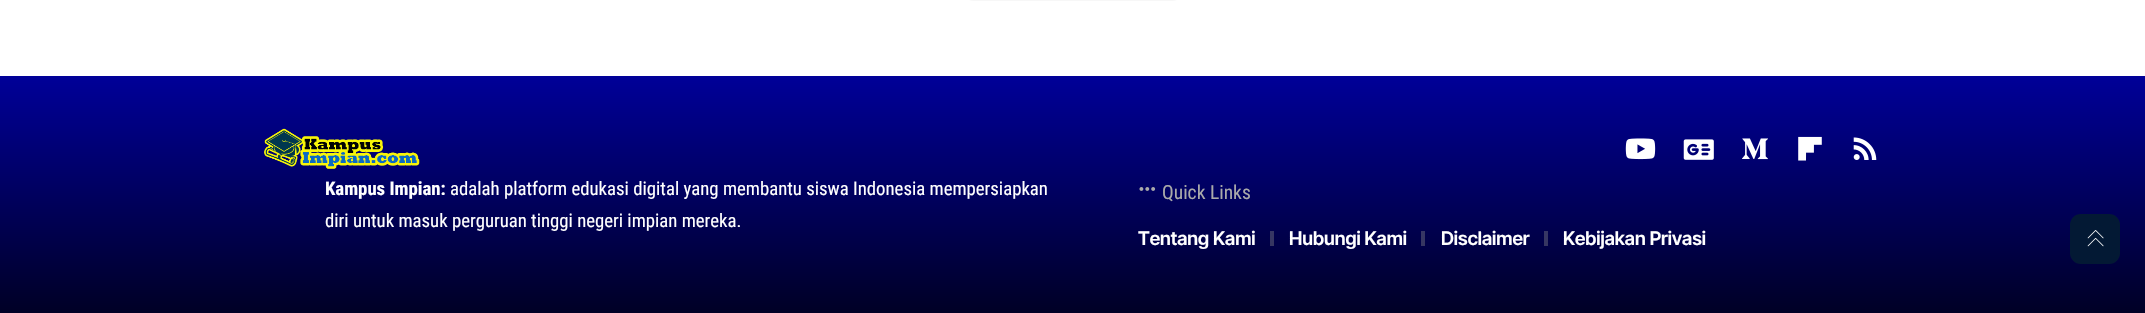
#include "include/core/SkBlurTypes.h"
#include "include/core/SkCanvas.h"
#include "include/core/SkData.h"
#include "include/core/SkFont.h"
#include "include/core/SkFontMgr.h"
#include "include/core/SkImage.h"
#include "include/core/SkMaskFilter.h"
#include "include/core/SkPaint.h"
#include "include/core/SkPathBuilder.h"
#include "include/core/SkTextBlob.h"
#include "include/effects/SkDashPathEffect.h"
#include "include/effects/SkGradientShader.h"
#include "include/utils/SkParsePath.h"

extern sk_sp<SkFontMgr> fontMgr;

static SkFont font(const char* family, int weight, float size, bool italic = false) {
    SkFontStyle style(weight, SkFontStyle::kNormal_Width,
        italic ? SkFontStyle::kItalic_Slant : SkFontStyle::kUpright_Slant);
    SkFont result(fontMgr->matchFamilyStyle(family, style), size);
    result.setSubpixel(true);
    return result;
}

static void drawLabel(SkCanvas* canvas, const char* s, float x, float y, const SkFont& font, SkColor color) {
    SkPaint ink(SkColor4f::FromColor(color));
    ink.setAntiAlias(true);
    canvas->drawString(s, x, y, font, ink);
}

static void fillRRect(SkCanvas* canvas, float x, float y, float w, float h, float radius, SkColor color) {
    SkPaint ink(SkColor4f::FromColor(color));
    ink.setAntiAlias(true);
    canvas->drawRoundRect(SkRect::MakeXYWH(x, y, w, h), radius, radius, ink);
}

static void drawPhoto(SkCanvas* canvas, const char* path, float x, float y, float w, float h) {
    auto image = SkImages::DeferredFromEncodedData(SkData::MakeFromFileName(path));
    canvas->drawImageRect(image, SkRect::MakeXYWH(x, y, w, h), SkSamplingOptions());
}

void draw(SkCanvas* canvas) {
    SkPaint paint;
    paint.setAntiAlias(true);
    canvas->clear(0xFFFFFFFF);
    fillRRect(canvas, 963, -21, 220, 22, 21, 0xFFF7F7F7);
    {
        const SkColor colors[] = {0xFF000098, 0xFF000008};
        const float stops[] = {0, 1};
        const SkPoint ends[] = {{1073, 76}, {1073, 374}};
        paint.setShader(SkGradientShader::MakeLinear(ends, colors, stops, 2, SkTileMode::kClamp));
        paint.setAlpha(255);
    }
    canvas->drawRect(SkRect::MakeXYWH(0, 76, 2145, 237), paint);
    {
        const SkColor colors[] = {0xFF363692, 0xFF36363B};
        const float stops[] = {0, 1};
        const SkPoint ends[] = {{1073, 76}, {1073, 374}};
        paint.setShader(SkGradientShader::MakeLinear(ends, colors, stops, 2, SkTileMode::kClamp));
        paint.setAlpha(255);
    }
    canvas->drawRect(SkRect::MakeXYWH(1544, 231, 4, 15), paint);
    canvas->drawRect(SkRect::MakeXYWH(1421, 231, 4, 15), paint);
    canvas->drawRect(SkRect::MakeXYWH(1270, 231, 4, 15), paint);
    drawPhoto(canvas, "assets/img1.png", 264, 128, 156, 41);
    drawPhoto(canvas, "assets/img2.png", 1625, 138, 31, 22);
    drawPhoto(canvas, "assets/img3.png", 1683, 139, 31, 21);
    drawPhoto(canvas, "assets/img4.png", 1742, 138, 26, 22);
    drawPhoto(canvas, "assets/img5.png", 1798, 136, 24, 25);
    drawPhoto(canvas, "assets/img6.png", 1853, 137, 24, 23);
    SkFont font1 = font("Roboto Condensed", 700, 18.75f);
    drawLabel(canvas, "Kampus Impian:", 325, 195, font1, 0xFFFFFFFF);
    SkFont font2 = font("Roboto Condensed", 400, 18.75f);
    drawLabel(canvas, "adalah platform edukasi digital yang membantu siswa Indonesia mempersiapkan", 450, 195, font2, 0xFFFFFFFF);
    drawLabel(canvas, "diri untuk masuk perguruan tinggi negeri impian mereka.", 325, 227, font2, 0xFFFFFFFF);
    drawPhoto(canvas, "assets/img7.png", 1139, 187, 17, 4);
    SkFont font3 = font("Roboto Condensed", 400, 19.5f);
    drawLabel(canvas, "Quick Links", 1162, 199, font3, 0xFFAAAAAA);
    SkFont font4 = font("Inter Tight", 600, 18.75f);
    drawLabel(canvas, "Tentang Kami", 1138, 245, font4, 0xFFFFFFFF);
    drawLabel(canvas, "Hubungi Kami", 1289, 245, font4, 0xFFFFFFFF);
    drawLabel(canvas, "Disclaimer", 1441, 245, font4, 0xFFFFFFFF);
    drawLabel(canvas, "Kebijakan Privasi", 1563, 245, font4, 0xFFFFFFFF);
    fillRRect(canvas, 2070, 214, 50, 50, 11, 0xFF031934);
    drawPhoto(canvas, "assets/img8.png", 2087, 230, 17, 17);
}
